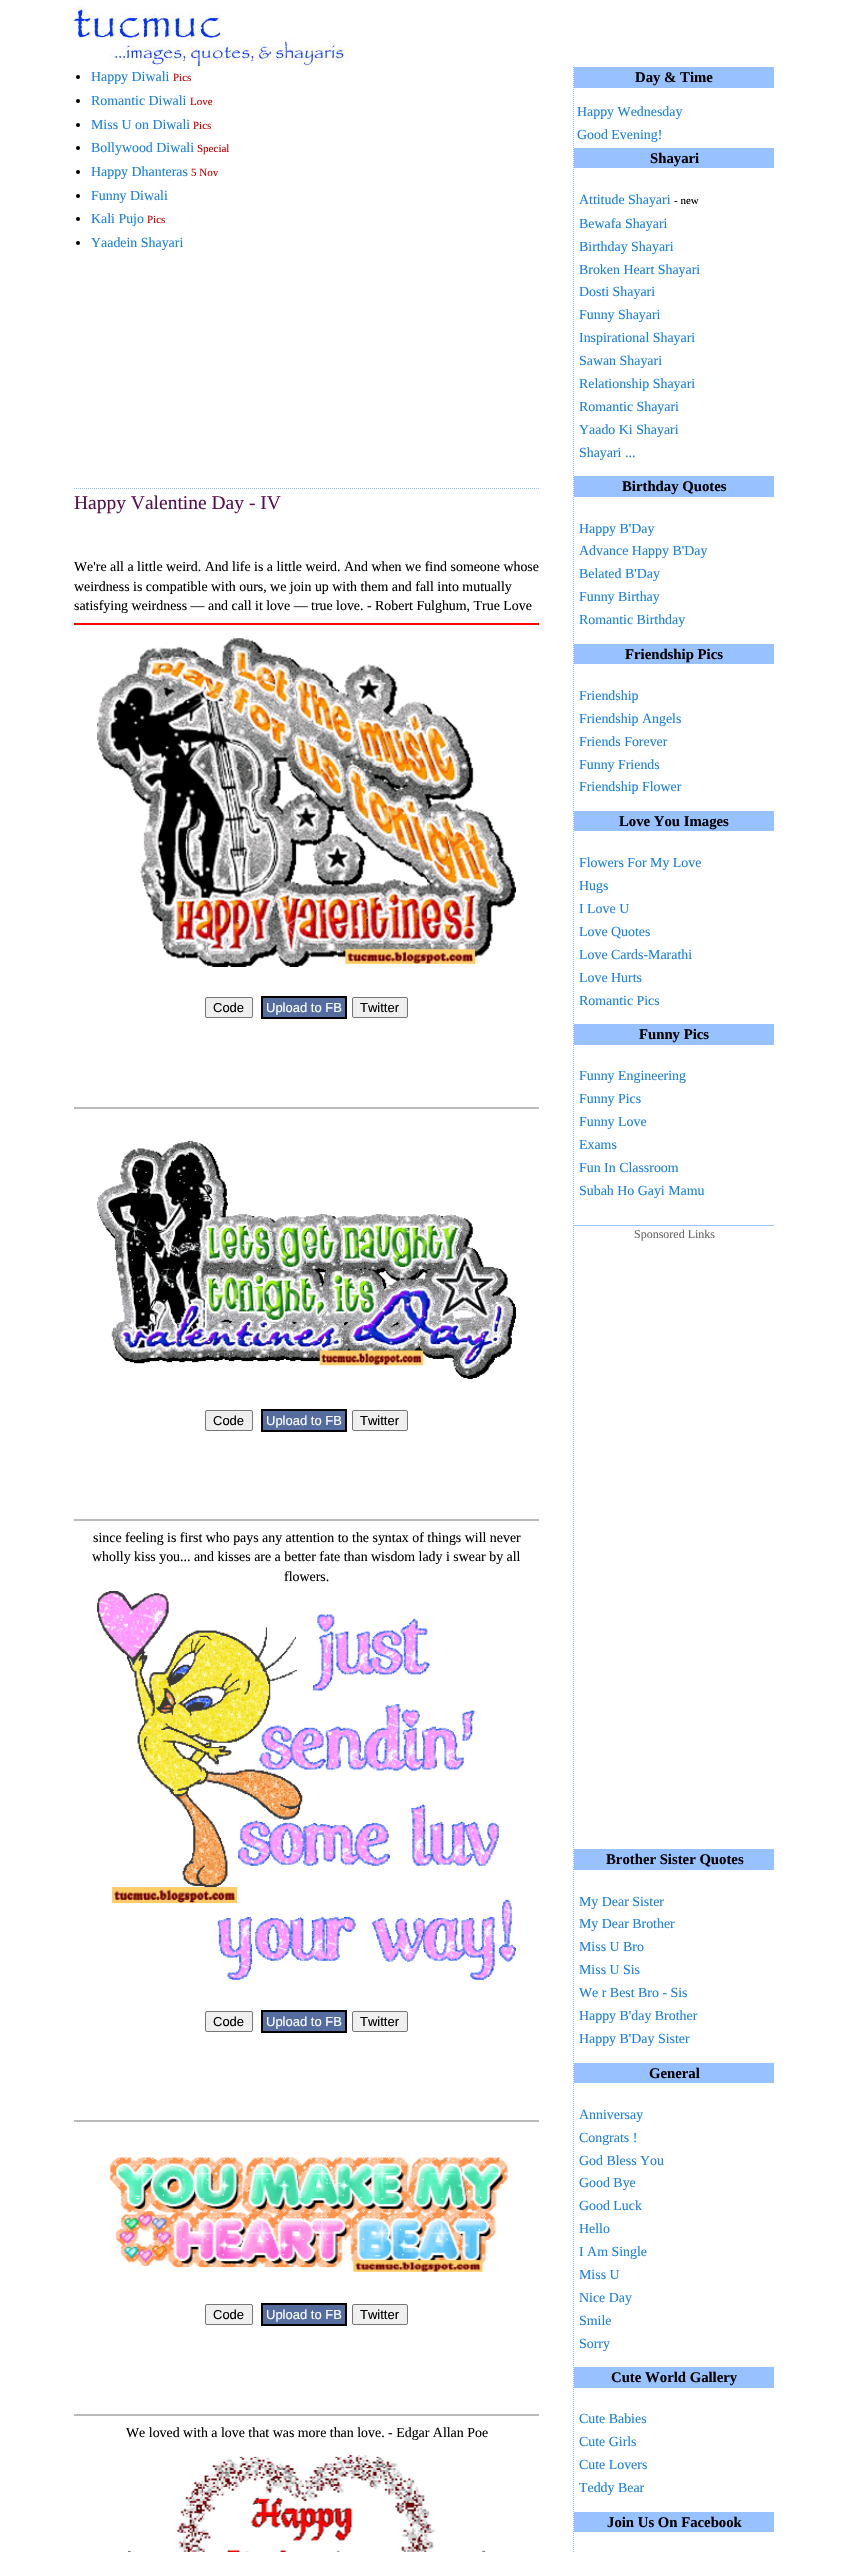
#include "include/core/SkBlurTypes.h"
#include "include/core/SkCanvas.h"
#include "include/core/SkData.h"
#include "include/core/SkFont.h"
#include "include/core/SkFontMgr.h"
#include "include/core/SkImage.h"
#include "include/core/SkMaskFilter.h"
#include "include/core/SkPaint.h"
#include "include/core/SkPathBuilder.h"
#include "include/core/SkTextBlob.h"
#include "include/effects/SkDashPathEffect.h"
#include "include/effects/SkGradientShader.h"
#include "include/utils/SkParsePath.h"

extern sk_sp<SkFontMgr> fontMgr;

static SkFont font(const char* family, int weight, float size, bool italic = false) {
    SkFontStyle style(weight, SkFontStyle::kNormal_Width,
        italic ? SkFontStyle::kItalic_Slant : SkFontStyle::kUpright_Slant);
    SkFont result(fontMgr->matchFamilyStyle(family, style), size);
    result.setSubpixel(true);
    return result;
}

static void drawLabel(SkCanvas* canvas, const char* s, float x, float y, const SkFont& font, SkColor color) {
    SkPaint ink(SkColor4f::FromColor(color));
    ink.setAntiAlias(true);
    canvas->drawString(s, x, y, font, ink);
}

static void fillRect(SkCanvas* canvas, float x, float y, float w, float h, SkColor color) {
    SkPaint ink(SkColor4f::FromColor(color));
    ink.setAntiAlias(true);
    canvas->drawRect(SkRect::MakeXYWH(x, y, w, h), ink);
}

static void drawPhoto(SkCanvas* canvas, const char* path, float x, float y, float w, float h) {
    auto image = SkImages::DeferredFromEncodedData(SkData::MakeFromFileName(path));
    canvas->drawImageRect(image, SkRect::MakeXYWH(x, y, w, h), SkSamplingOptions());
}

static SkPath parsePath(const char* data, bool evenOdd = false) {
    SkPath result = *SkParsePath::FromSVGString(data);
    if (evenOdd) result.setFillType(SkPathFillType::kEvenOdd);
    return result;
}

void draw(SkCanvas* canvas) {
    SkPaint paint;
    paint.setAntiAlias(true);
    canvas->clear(0xFFFFFFFF);
    drawPhoto(canvas, "assets/img1.png", 69, 6, 280, 60);
    paint.setColor(0xFF000000);
    canvas->drawCircle(78, 77, 2, paint);
    SkFont font1 = font("Liberation Serif", 400, 13.9f);
    drawLabel(canvas, "Happy Diwali", 91, 81, font1, 0xFF1A80DF);
    SkFont font2 = font("Liberation Serif", 400, 11);
    drawLabel(canvas, "Pics", 173, 81, font2, 0xFFCC0000);
    canvas->drawCircle(78, 101, 2, paint);
    drawLabel(canvas, "Romantic Diwali", 91, 105, font1, 0xFF1A80DF);
    drawLabel(canvas, "Love", 190, 105, font2, 0xFFCC0000);
    canvas->drawCircle(78, 125, 2, paint);
    drawLabel(canvas, "Miss U on Diwali", 91, 129, font1, 0xFF1A80DF);
    drawLabel(canvas, "Pics", 193, 129, font2, 0xFFCC0000);
    canvas->drawCircle(78, 148, 2, paint);
    drawLabel(canvas, "Bollywood Diwali", 91, 152, font1, 0xFF1A80DF);
    drawLabel(canvas, "Special", 197, 152, font2, 0xFFCC0000);
    canvas->drawCircle(78, 172, 2, paint);
    drawLabel(canvas, "Happy Dhanteras", 91, 176, font1, 0xFF1A80DF);
    drawLabel(canvas, "5 Nov", 191, 176, font2, 0xFFCC0000);
    canvas->drawCircle(78, 196, 2, paint);
    drawLabel(canvas, "Funny Diwali", 91, 200, font1, 0xFF1A80DF);
    canvas->drawCircle(78, 219, 2, paint);
    drawLabel(canvas, "Kali Pujo", 91, 223, font1, 0xFF1A80DF);
    drawLabel(canvas, "Pics", 147, 223, font2, 0xFFCC0000);
    canvas->drawCircle(78, 243, 2, paint);
    drawLabel(canvas, "Yaadein Shayari", 91, 247, font1, 0xFF1A80DF);
    paint.setStroke(true);
    paint.setStrokeWidth(1);
    paint.setColor(0xFF98C1FF);
    paint.setPathEffect(SkDashPathEffect::Make({{1, 1}}, 0));
    canvas->drawPath(parsePath("M74 488.5H539"), paint);
    paint.setPathEffect(nullptr);
    SkFont font3 = font("Liberation Serif", 400, 19.5f);
    drawLabel(canvas, "Happy Valentine Day - IV", 74, 509, font3, 0xFF59114D);
    drawLabel(canvas, "We're all a little weird. And life is a little weird. And when we find someone whose", 74, 571, font1, 0xFF000000);
    drawLabel(canvas, "weirdness is compatible with ours, we join up with them and fall into mutually", 74, 591, font1, 0xFF000000);
    drawLabel(canvas, "satisfying weirdness — and call it love — true love. - Robert Fulghum, True Love", 74, 610, font1, 0xFF000000);
    fillRect(canvas, 74, 623, 465, 2, 0xFFFF0000);
    drawPhoto(canvas, "assets/img2.png", 97, 638, 419, 329);
    paint.setStroke(false);
    paint.setColor(0xFFEFEFEF);
    canvas->drawRoundRect(SkRect::MakeXYWH(205.5f, 997.5f, 47, 20), 1.5f, 1.5f, paint);
    paint.setStroke(true);
    paint.setColor(0xFF767676);
    canvas->drawRoundRect(SkRect::MakeXYWH(205.5f, 997.5f, 47, 20), 1.5f, 1.5f, paint);
    SkFont font4 = font("Liberation Sans", 400, 13);
    drawLabel(canvas, "Code", 213, 1012, font4, 0xFF000000);
    paint.setStroke(false);
    paint.setColor(0xFF546C9E);
    canvas->drawRect(SkRect::MakeXYWH(262, 997, 84, 21), paint);
    paint.setStroke(true);
    paint.setStrokeWidth(2);
    paint.setColor(0xFF000000);
    canvas->drawRect(SkRect::MakeXYWH(262, 997, 84, 21), paint);
    drawLabel(canvas, "Upload to FB", 266, 1012, font4, 0xFFFFFFFF);
    paint.setStroke(false);
    paint.setColor(0xFFEFEFEF);
    canvas->drawRoundRect(SkRect::MakeXYWH(352.5f, 997.5f, 55, 20), 1.5f, 1.5f, paint);
    paint.setStroke(true);
    paint.setStrokeWidth(1);
    paint.setColor(0xFF767676);
    canvas->drawRoundRect(SkRect::MakeXYWH(352.5f, 997.5f, 55, 20), 1.5f, 1.5f, paint);
    drawLabel(canvas, "Twitter", 360, 1012, font4, 0xFF000000);
    fillRect(canvas, 74, 1107, 465, 2, 0xFFBBBBBB);
    drawPhoto(canvas, "assets/img3.png", 97, 1141, 419, 238);
    paint.setStroke(false);
    paint.setColor(0xFFEFEFEF);
    canvas->drawRoundRect(SkRect::MakeXYWH(205.5f, 1410.5f, 47, 20), 1.5f, 1.5f, paint);
    paint.setStroke(true);
    paint.setColor(0xFF767676);
    canvas->drawRoundRect(SkRect::MakeXYWH(205.5f, 1410.5f, 47, 20), 1.5f, 1.5f, paint);
    drawLabel(canvas, "Code", 213, 1425, font4, 0xFF000000);
    paint.setStroke(false);
    paint.setColor(0xFF546C9E);
    canvas->drawRect(SkRect::MakeXYWH(262, 1410, 84, 21), paint);
    paint.setStroke(true);
    paint.setStrokeWidth(2);
    paint.setColor(0xFF000000);
    canvas->drawRect(SkRect::MakeXYWH(262, 1410, 84, 21), paint);
    drawLabel(canvas, "Upload to FB", 266, 1425, font4, 0xFFFFFFFF);
    paint.setStroke(false);
    paint.setColor(0xFFEFEFEF);
    canvas->drawRoundRect(SkRect::MakeXYWH(352.5f, 1410.5f, 55, 20), 1.5f, 1.5f, paint);
    paint.setStroke(true);
    paint.setStrokeWidth(1);
    paint.setColor(0xFF767676);
    canvas->drawRoundRect(SkRect::MakeXYWH(352.5f, 1410.5f, 55, 20), 1.5f, 1.5f, paint);
    drawLabel(canvas, "Twitter", 360, 1425, font4, 0xFF000000);
    fillRect(canvas, 74, 1519, 465, 2, 0xFFBBBBBB);
    drawLabel(canvas, "since feeling is first who pays any attention to the syntax of things will never", 93, 1542, font1, 0xFF000000);
    drawLabel(canvas, "wholly kiss you... and kisses are a better fate than wisdom lady i swear by all", 92, 1561, font1, 0xFF000000);
    drawLabel(canvas, "flowers.", 284, 1581, font1, 0xFF000000);
    drawPhoto(canvas, "assets/img4.png", 97, 1591, 419, 389);
    paint.setStroke(false);
    paint.setColor(0xFFEFEFEF);
    canvas->drawRoundRect(SkRect::MakeXYWH(205.5f, 2011.5f, 47, 20), 1.5f, 1.5f, paint);
    paint.setStroke(true);
    paint.setColor(0xFF767676);
    canvas->drawRoundRect(SkRect::MakeXYWH(205.5f, 2011.5f, 47, 20), 1.5f, 1.5f, paint);
    drawLabel(canvas, "Code", 213, 2026, font4, 0xFF000000);
    paint.setStroke(false);
    paint.setColor(0xFF546C9E);
    canvas->drawRect(SkRect::MakeXYWH(262, 2011, 84, 21), paint);
    paint.setStroke(true);
    paint.setStrokeWidth(2);
    paint.setColor(0xFF000000);
    canvas->drawRect(SkRect::MakeXYWH(262, 2011, 84, 21), paint);
    drawLabel(canvas, "Upload to FB", 266, 2026, font4, 0xFFFFFFFF);
    paint.setStroke(false);
    paint.setColor(0xFFEFEFEF);
    canvas->drawRoundRect(SkRect::MakeXYWH(352.5f, 2011.5f, 55, 20), 1.5f, 1.5f, paint);
    paint.setStroke(true);
    paint.setStrokeWidth(1);
    paint.setColor(0xFF767676);
    canvas->drawRoundRect(SkRect::MakeXYWH(352.5f, 2011.5f, 55, 20), 1.5f, 1.5f, paint);
    drawLabel(canvas, "Twitter", 360, 2026, font4, 0xFF000000);
    fillRect(canvas, 74, 2120, 465, 2, 0xFFBBBBBB);
    drawPhoto(canvas, "assets/img5.png", 110, 2157, 398, 115);
    paint.setStroke(false);
    paint.setColor(0xFFEFEFEF);
    canvas->drawRoundRect(SkRect::MakeXYWH(205.5f, 2304.5f, 47, 20), 1.5f, 1.5f, paint);
    paint.setStroke(true);
    paint.setColor(0xFF767676);
    canvas->drawRoundRect(SkRect::MakeXYWH(205.5f, 2304.5f, 47, 20), 1.5f, 1.5f, paint);
    drawLabel(canvas, "Code", 213, 2319, font4, 0xFF000000);
    paint.setStroke(false);
    paint.setColor(0xFF546C9E);
    canvas->drawRect(SkRect::MakeXYWH(262, 2304, 84, 21), paint);
    paint.setStroke(true);
    paint.setStrokeWidth(2);
    paint.setColor(0xFF000000);
    canvas->drawRect(SkRect::MakeXYWH(262, 2304, 84, 21), paint);
    drawLabel(canvas, "Upload to FB", 266, 2319, font4, 0xFFFFFFFF);
    paint.setStroke(false);
    paint.setColor(0xFFEFEFEF);
    canvas->drawRoundRect(SkRect::MakeXYWH(352.5f, 2304.5f, 55, 20), 1.5f, 1.5f, paint);
    paint.setStroke(true);
    paint.setStrokeWidth(1);
    paint.setColor(0xFF767676);
    canvas->drawRoundRect(SkRect::MakeXYWH(352.5f, 2304.5f, 55, 20), 1.5f, 1.5f, paint);
    drawLabel(canvas, "Twitter", 360, 2319, font4, 0xFF000000);
    fillRect(canvas, 74, 2414, 465, 2, 0xFFBBBBBB);
    drawLabel(canvas, "We loved with a love that was more than love. - Edgar Allan Poe", 126, 2437, font1, 0xFF000000);
    drawPhoto(canvas, "assets/img6.png", 127, 2455, 359, 97);
    paint.setColor(0xFF98C1FF);
    paint.setPathEffect(SkDashPathEffect::Make({{1, 1}}, 0));
    canvas->drawPath(parsePath("M573.5 67V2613"), paint);
    paint.setPathEffect(nullptr);
    fillRect(canvas, 574, 67, 200, 21, 0xFF98C1FF);
    SkFont font5 = font("Liberation Serif", 700, 14.75f);
    drawLabel(canvas, "Day & Time", 635, 82, font5, 0xFF000000);
    drawLabel(canvas, "Happy Wednesday", 577, 116, font1, 0xFF1A80DF);
    drawLabel(canvas, "Good Evening!", 577, 139, font1, 0xFF1A80DF);
    fillRect(canvas, 574, 148, 200, 20, 0xFF98C1FF);
    drawLabel(canvas, "Shayari", 650, 163, font5, 0xFF000000);
    drawLabel(canvas, "Attitude Shayari", 579, 204, font1, 0xFF1A80DF);
    drawLabel(canvas, "- new", 674, 204, font2, 0xFF000000);
    drawLabel(canvas, "Bewafa Shayari", 579, 228, font1, 0xFF1A80DF);
    drawLabel(canvas, "Birthday Shayari", 579, 251, font1, 0xFF1A80DF);
    drawLabel(canvas, "Broken Heart Shayari", 579, 274, font1, 0xFF1A80DF);
    drawLabel(canvas, "Dosti Shayari", 579, 296, font1, 0xFF1A80DF);
    drawLabel(canvas, "Funny Shayari", 579, 319, font1, 0xFF1A80DF);
    drawLabel(canvas, "Inspirational Shayari", 579, 342, font1, 0xFF1A80DF);
    drawLabel(canvas, "Sawan Shayari", 579, 365, font1, 0xFF1A80DF);
    drawLabel(canvas, "Relationship Shayari", 579, 388, font1, 0xFF1A80DF);
    drawLabel(canvas, "Romantic Shayari", 579, 411, font1, 0xFF1A80DF);
    drawLabel(canvas, "Yaado Ki Shayari", 579, 434, font1, 0xFF1A80DF);
    drawLabel(canvas, "Shayari ...", 579, 457, font1, 0xFF1A80DF);
    fillRect(canvas, 574, 476, 200, 21, 0xFF98C1FF);
    drawLabel(canvas, "Birthday Quotes", 622, 491, font5, 0xFF000000);
    drawLabel(canvas, "Happy B'Day", 579, 533, font1, 0xFF1A80DF);
    drawLabel(canvas, "Advance Happy B'Day", 579, 555, font1, 0xFF1A80DF);
    drawLabel(canvas, "Belated B'Day", 579, 578, font1, 0xFF1A80DF);
    drawLabel(canvas, "Funny Birthay", 579, 601, font1, 0xFF1A80DF);
    drawLabel(canvas, "Romantic Birthday", 579, 624, font1, 0xFF1A80DF);
    fillRect(canvas, 574, 644, 200, 20, 0xFF98C1FF);
    drawLabel(canvas, "Friendship Pics", 625, 659, font5, 0xFF000000);
    drawLabel(canvas, "Friendship", 579, 700, font1, 0xFF1A80DF);
    drawLabel(canvas, "Friendship Angels", 579, 723, font1, 0xFF1A80DF);
    drawLabel(canvas, "Friends Forever", 579, 746, font1, 0xFF1A80DF);
    drawLabel(canvas, "Funny Friends", 579, 769, font1, 0xFF1A80DF);
    drawLabel(canvas, "Friendship Flower", 579, 791, font1, 0xFF1A80DF);
    fillRect(canvas, 574, 811, 200, 20, 0xFF98C1FF);
    drawLabel(canvas, "Love You Images", 619, 826, font5, 0xFF000000);
    drawLabel(canvas, "Flowers For My Love", 579, 867, font1, 0xFF1A80DF);
    drawLabel(canvas, "Hugs", 579, 890, font1, 0xFF1A80DF);
    drawLabel(canvas, "I Love U", 579, 913, font1, 0xFF1A80DF);
    drawLabel(canvas, "Love Quotes", 579, 936, font1, 0xFF1A80DF);
    drawLabel(canvas, "Love Cards-Marathi", 579, 959, font1, 0xFF1A80DF);
    drawLabel(canvas, "Love Hurts", 579, 982, font1, 0xFF1A80DF);
    drawLabel(canvas, "Romantic Pics", 579, 1005, font1, 0xFF1A80DF);
    fillRect(canvas, 574, 1024, 200, 21, 0xFF98C1FF);
    drawLabel(canvas, "Funny Pics", 639, 1039, font5, 0xFF000000);
    drawLabel(canvas, "Funny Engineering", 579, 1080, font1, 0xFF1A80DF);
    drawLabel(canvas, "Funny Pics", 579, 1103, font1, 0xFF1A80DF);
    drawLabel(canvas, "Funny Love", 579, 1126, font1, 0xFF1A80DF);
    drawLabel(canvas, "Exams", 579, 1149, font1, 0xFF1A80DF);
    drawLabel(canvas, "Fun In Classroom", 579, 1172, font1, 0xFF1A80DF);
    drawLabel(canvas, "Subah Ho Gayi Mamu", 579, 1195, font1, 0xFF1A80DF);
    fillRect(canvas, 574, 1225, 200, 1, 0xFF98C1FF);
    SkFont font6 = font("Liberation Serif", 400, 12);
    drawLabel(canvas, "Sponsored Links", 634, 1238, font6, 0xFF666666);
    fillRect(canvas, 574, 1849, 200, 21, 0xFF98C1FF);
    drawLabel(canvas, "Brother Sister Quotes", 606, 1864, font5, 0xFF000000);
    drawLabel(canvas, "My Dear Sister", 579, 1906, font1, 0xFF1A80DF);
    drawLabel(canvas, "My Dear Brother", 579, 1928, font1, 0xFF1A80DF);
    drawLabel(canvas, "Miss U Bro", 579, 1951, font1, 0xFF1A80DF);
    drawLabel(canvas, "Miss U Sis", 579, 1974, font1, 0xFF1A80DF);
    drawLabel(canvas, "We r Best Bro - Sis", 579, 1997, font1, 0xFF1A80DF);
    drawLabel(canvas, "Happy B'day Brother", 579, 2020, font1, 0xFF1A80DF);
    drawLabel(canvas, "Happy B'Day Sister", 579, 2043, font1, 0xFF1A80DF);
    fillRect(canvas, 574, 2063, 200, 20, 0xFF98C1FF);
    drawLabel(canvas, "General", 649, 2078, font5, 0xFF000000);
    drawLabel(canvas, "Anniversay", 579, 2119, font1, 0xFF1A80DF);
    drawLabel(canvas, "Congrats !", 579, 2142, font1, 0xFF1A80DF);
    drawLabel(canvas, "God Bless You", 579, 2165, font1, 0xFF1A80DF);
    drawLabel(canvas, "Good Bye", 579, 2187, font1, 0xFF1A80DF);
    drawLabel(canvas, "Good Luck", 579, 2210, font1, 0xFF1A80DF);
    drawLabel(canvas, "Hello", 579, 2233, font1, 0xFF1A80DF);
    drawLabel(canvas, "I Am Single", 579, 2256, font1, 0xFF1A80DF);
    drawLabel(canvas, "Miss U", 579, 2279, font1, 0xFF1A80DF);
    drawLabel(canvas, "Nice Day", 579, 2302, font1, 0xFF1A80DF);
    drawLabel(canvas, "Smile", 579, 2325, font1, 0xFF1A80DF);
    drawLabel(canvas, "Sorry", 579, 2348, font1, 0xFF1A80DF);
    fillRect(canvas, 574, 2367, 200, 21, 0xFF98C1FF);
    drawLabel(canvas, "Cute World Gallery", 611, 2382, font5, 0xFF000000);
    drawLabel(canvas, "Cute Babies", 579, 2423, font1, 0xFF1A80DF);
    drawLabel(canvas, "Cute Girls", 579, 2446, font1, 0xFF1A80DF);
    drawLabel(canvas, "Cute Lovers", 579, 2469, font1, 0xFF1A80DF);
    drawLabel(canvas, "Teddy Bear", 579, 2492, font1, 0xFF1A80DF);
    fillRect(canvas, 574, 2512, 200, 20, 0xFF98C1FF);
    drawLabel(canvas, "Join Us On Facebook", 607, 2527, font5, 0xFF000000);
}
